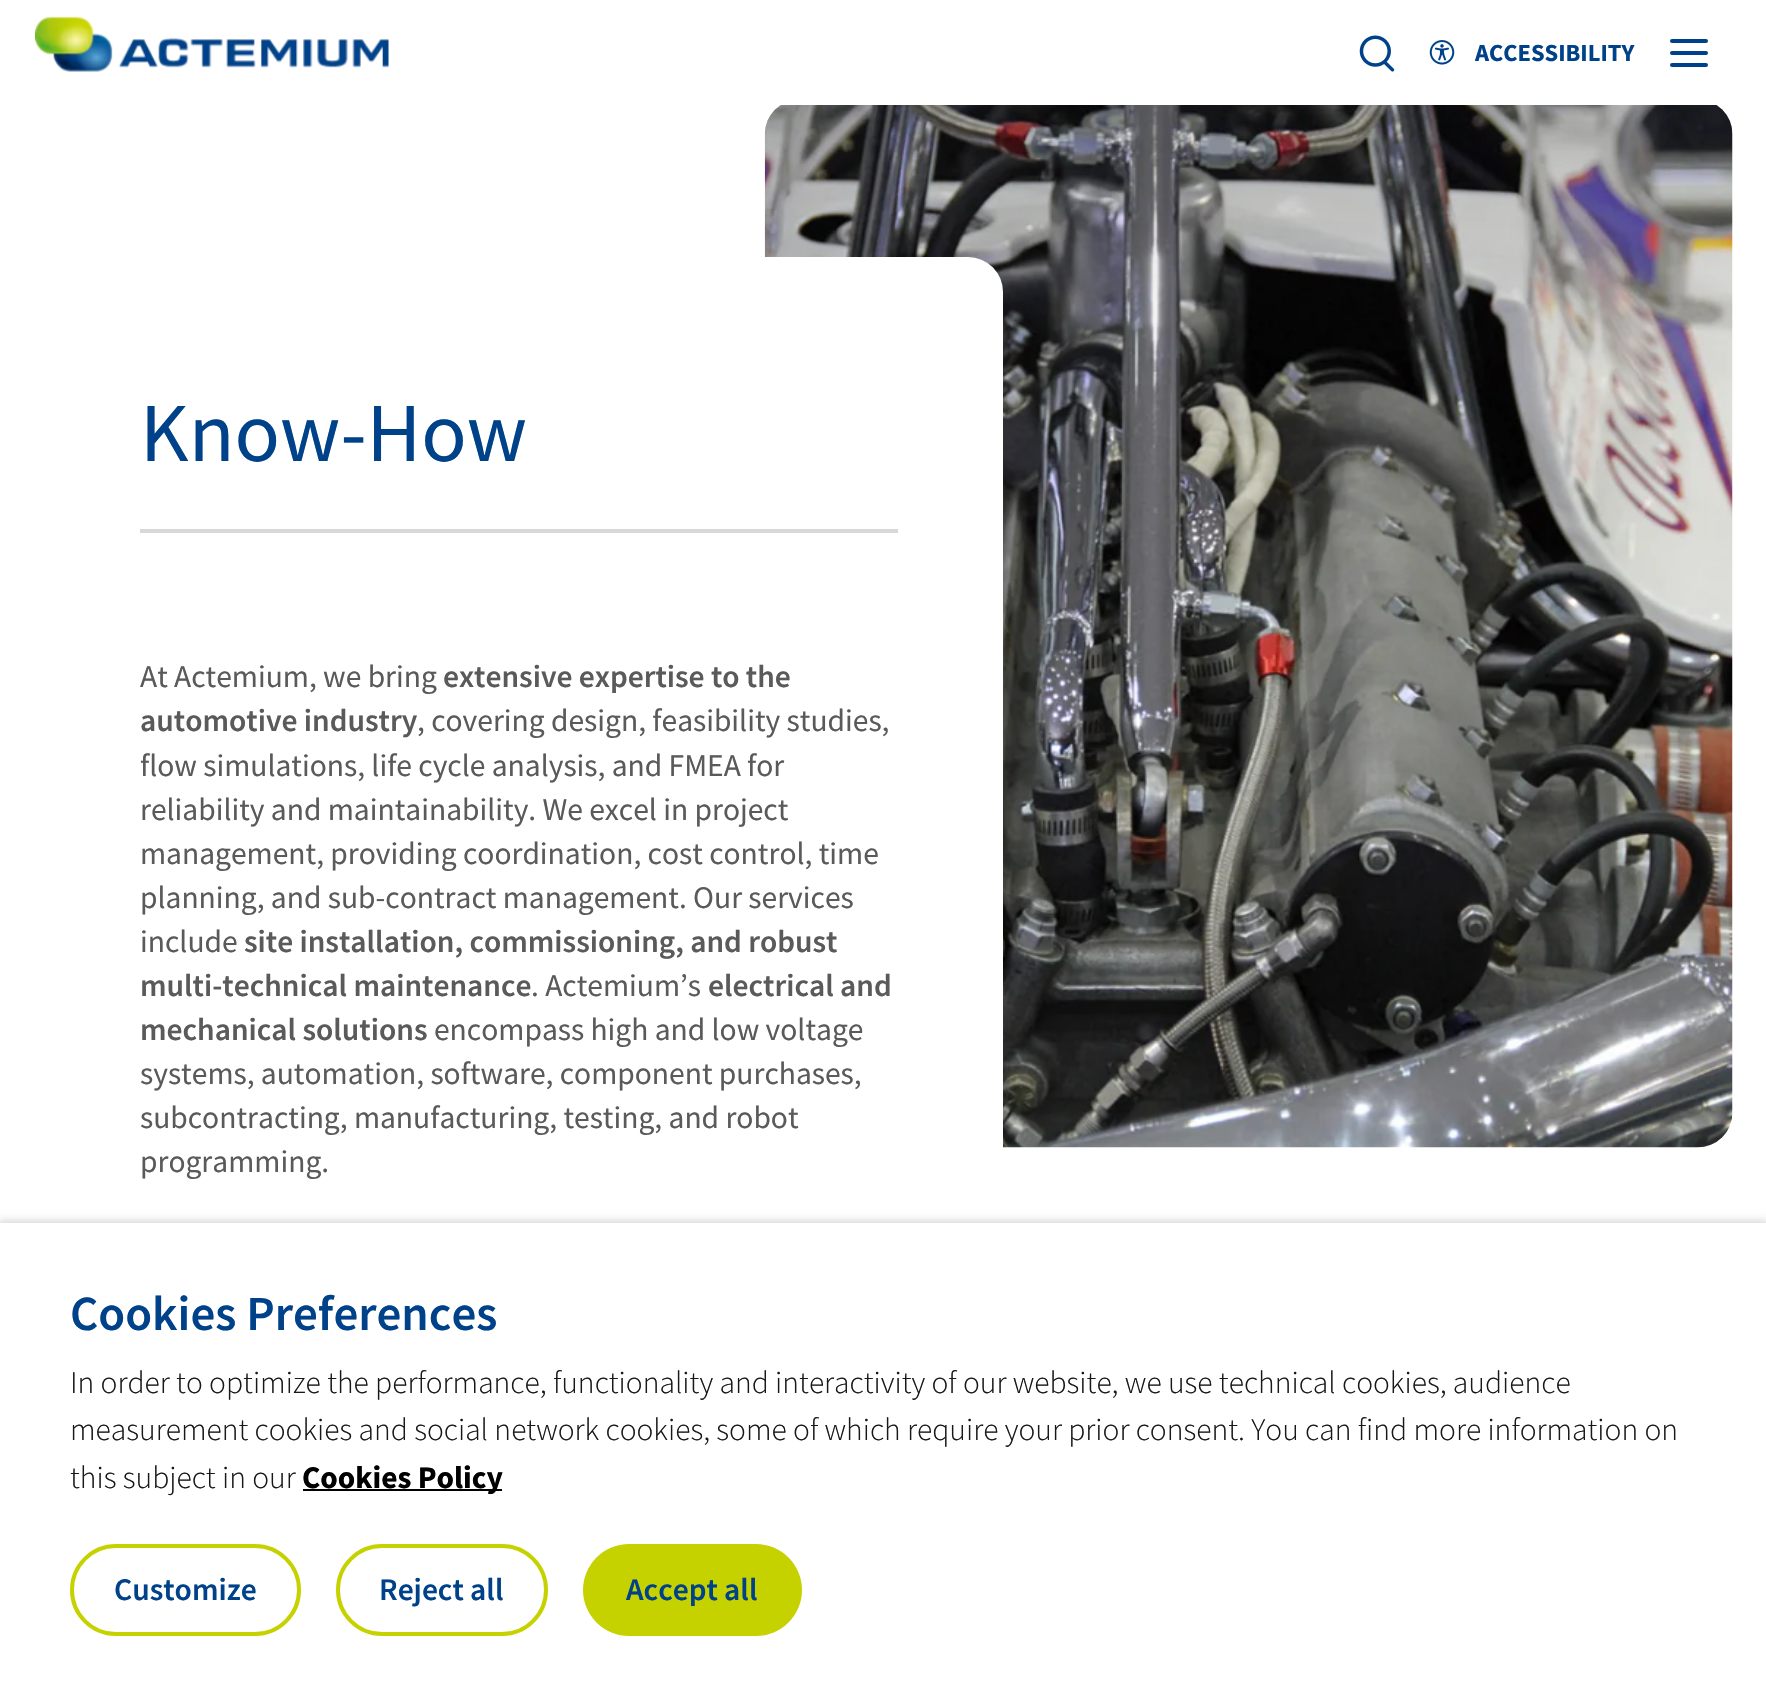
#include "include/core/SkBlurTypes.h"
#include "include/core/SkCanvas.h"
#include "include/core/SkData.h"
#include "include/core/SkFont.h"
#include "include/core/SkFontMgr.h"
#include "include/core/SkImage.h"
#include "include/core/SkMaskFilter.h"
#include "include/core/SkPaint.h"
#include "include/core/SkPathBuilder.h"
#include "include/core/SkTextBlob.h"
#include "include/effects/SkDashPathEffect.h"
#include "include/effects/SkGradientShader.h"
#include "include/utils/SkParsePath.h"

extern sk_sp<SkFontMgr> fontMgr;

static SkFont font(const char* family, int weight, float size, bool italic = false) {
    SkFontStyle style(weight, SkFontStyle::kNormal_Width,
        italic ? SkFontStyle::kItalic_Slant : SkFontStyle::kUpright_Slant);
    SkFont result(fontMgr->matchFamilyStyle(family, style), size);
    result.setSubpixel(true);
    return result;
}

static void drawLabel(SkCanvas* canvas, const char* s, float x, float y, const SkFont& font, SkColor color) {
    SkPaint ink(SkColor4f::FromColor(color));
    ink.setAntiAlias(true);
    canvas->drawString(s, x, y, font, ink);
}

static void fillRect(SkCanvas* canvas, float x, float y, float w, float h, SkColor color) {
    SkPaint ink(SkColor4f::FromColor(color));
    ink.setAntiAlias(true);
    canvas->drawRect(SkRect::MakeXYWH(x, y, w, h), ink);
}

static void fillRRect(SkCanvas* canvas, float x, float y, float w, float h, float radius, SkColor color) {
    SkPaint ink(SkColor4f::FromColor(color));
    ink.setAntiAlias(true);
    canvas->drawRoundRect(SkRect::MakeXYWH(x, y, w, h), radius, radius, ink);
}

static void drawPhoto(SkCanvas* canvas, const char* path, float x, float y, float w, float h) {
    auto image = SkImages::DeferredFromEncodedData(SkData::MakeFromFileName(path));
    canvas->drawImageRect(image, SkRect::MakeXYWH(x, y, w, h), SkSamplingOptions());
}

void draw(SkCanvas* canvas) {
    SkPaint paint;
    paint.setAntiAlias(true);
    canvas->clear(0xFFFFFFFF);
    drawPhoto(canvas, "assets/img1.png", 35, 16, 354, 56);
    drawPhoto(canvas, "assets/img2.png", 1359, 35, 36, 37);
    drawPhoto(canvas, "assets/img3.png", 1429, 40, 26, 25);
    SkFont font1 = font("Source Sans Pro", 700, 24.5f);
    drawLabel(canvas, "ACCESSIBILITY", 1475, 61, font1, 0xFF004289);
    fillRRect(canvas, 1670, 51, 38, 4, 2, 0xFF004289);
    fillRRect(canvas, 1670, 39, 38, 4, 2, 0xFF004289);
    fillRRect(canvas, 1670, 63, 38, 4, 2, 0xFF004289);
    drawPhoto(canvas, "assets/img4.png", 764, 105, 969, 1043);
    fillRRect(canvas, 35, 257, 968, 1049, 35, 0xFFFFFFFF);
    SkFont font2 = font("Source Sans Pro", 400, 84);
    drawLabel(canvas, "Know-How", 140, 461, font2, 0xFF004289);
    fillRect(canvas, 140, 529, 758, 4, 0xFFD8D8D8);
    SkFont font3 = font("Source Sans Pro", 400, 31.5f);
    drawLabel(canvas, "At Actemium, we bring", 140, 687, font3, 0xFF5A5A5A);
    SkFont font4 = font("Source Sans Pro", 600, 31.5f);
    drawLabel(canvas, "extensive expertise to the", 443, 687, font4, 0xFF5A5A5A);
    drawLabel(canvas, "automotive industry", 140, 731, font4, 0xFF5A5A5A);
    drawLabel(canvas, ", covering design, feasibility studies,", 417, 731, font3, 0xFF5A5A5A);
    drawLabel(canvas, "flow simulations, life cycle analysis, and FMEA for", 140, 776, font3, 0xFF5A5A5A);
    drawLabel(canvas, "reliability and maintainability. We excel in project", 140, 820, font3, 0xFF5A5A5A);
    drawLabel(canvas, "management, providing coordination, cost control, time", 140, 864, font3, 0xFF5A5A5A);
    drawLabel(canvas, "planning, and sub-contract management. Our services", 140, 908, font3, 0xFF5A5A5A);
    drawLabel(canvas, "include", 140, 952, font3, 0xFF5A5A5A);
    drawLabel(canvas, "site installation, commissioning, and robust", 244, 952, font4, 0xFF5A5A5A);
    drawLabel(canvas, "multi-technical maintenance", 140, 996, font4, 0xFF5A5A5A);
    drawLabel(canvas, ". Actemium’s", 531, 996, font3, 0xFF5A5A5A);
    drawLabel(canvas, "electrical and", 708, 996, font4, 0xFF5A5A5A);
    drawLabel(canvas, "mechanical solutions", 140, 1040, font4, 0xFF5A5A5A);
    drawLabel(canvas, "encompass high and low voltage", 434, 1040, font3, 0xFF5A5A5A);
    drawLabel(canvas, "systems, automation, software, component purchases,", 140, 1084, font3, 0xFF5A5A5A);
    drawLabel(canvas, "subcontracting, manufacturing, testing, and robot", 140, 1128, font3, 0xFF5A5A5A);
    drawLabel(canvas, "programming.", 140, 1172, font3, 0xFF5A5A5A);
    paint.setColor(0x33000000);
    paint.setMaskFilter(SkMaskFilter::MakeBlur(kNormal_SkBlurStyle, 4.5f));
    canvas->drawRect(SkRect::MakeXYWH(-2, 1222, 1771, 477), paint);
    paint.setMaskFilter(nullptr);
    fillRect(canvas, 0, 1223, 1766, 474, 0xFFFFFFFF);
    SkFont font5 = font("Source Sans Pro", 600, 49);
    drawLabel(canvas, "Cookies Preferences", 70, 1330, font5, 0xFF004289);
    SkFont font6 = font("Source Sans Pro", 300, 31.5f);
    drawLabel(canvas, "In order to optimize the performance, functionality and interactivity of our website, we use technical cookies, audience", 70, 1393, font6, 0xFF181818);
    drawLabel(canvas, "measurement cookies and social network cookies, some of which require your prior consent. You can find more information on", 70, 1440, font6, 0xFF181818);
    drawLabel(canvas, "this subject in our", 70, 1488, font6, 0xFF181818);
    fillRect(canvas, 303, 1489, 199, 2, 0xFF000000);
    SkFont font7 = font("Source Sans Pro", 700, 31.5f);
    drawLabel(canvas, "Cookies Policy", 302, 1488, font7, 0xFF000000);
    paint.setStroke(true);
    paint.setStrokeWidth(4);
    paint.setColor(0xFFC6D200);
    canvas->drawRoundRect(SkRect::MakeXYWH(72, 1546, 227, 88), 44, 44, paint);
    drawLabel(canvas, "Customize", 114, 1600, font4, 0xFF004289);
    canvas->drawRoundRect(SkRect::MakeXYWH(338, 1546, 208, 88), 44, 44, paint);
    drawLabel(canvas, "Reject all", 379, 1600, font4, 0xFF004289);
    fillRRect(canvas, 583, 1544, 219, 92, 46, 0xFFC6D200);
    drawLabel(canvas, "Accept all", 626, 1600, font4, 0xFF004289);
}
